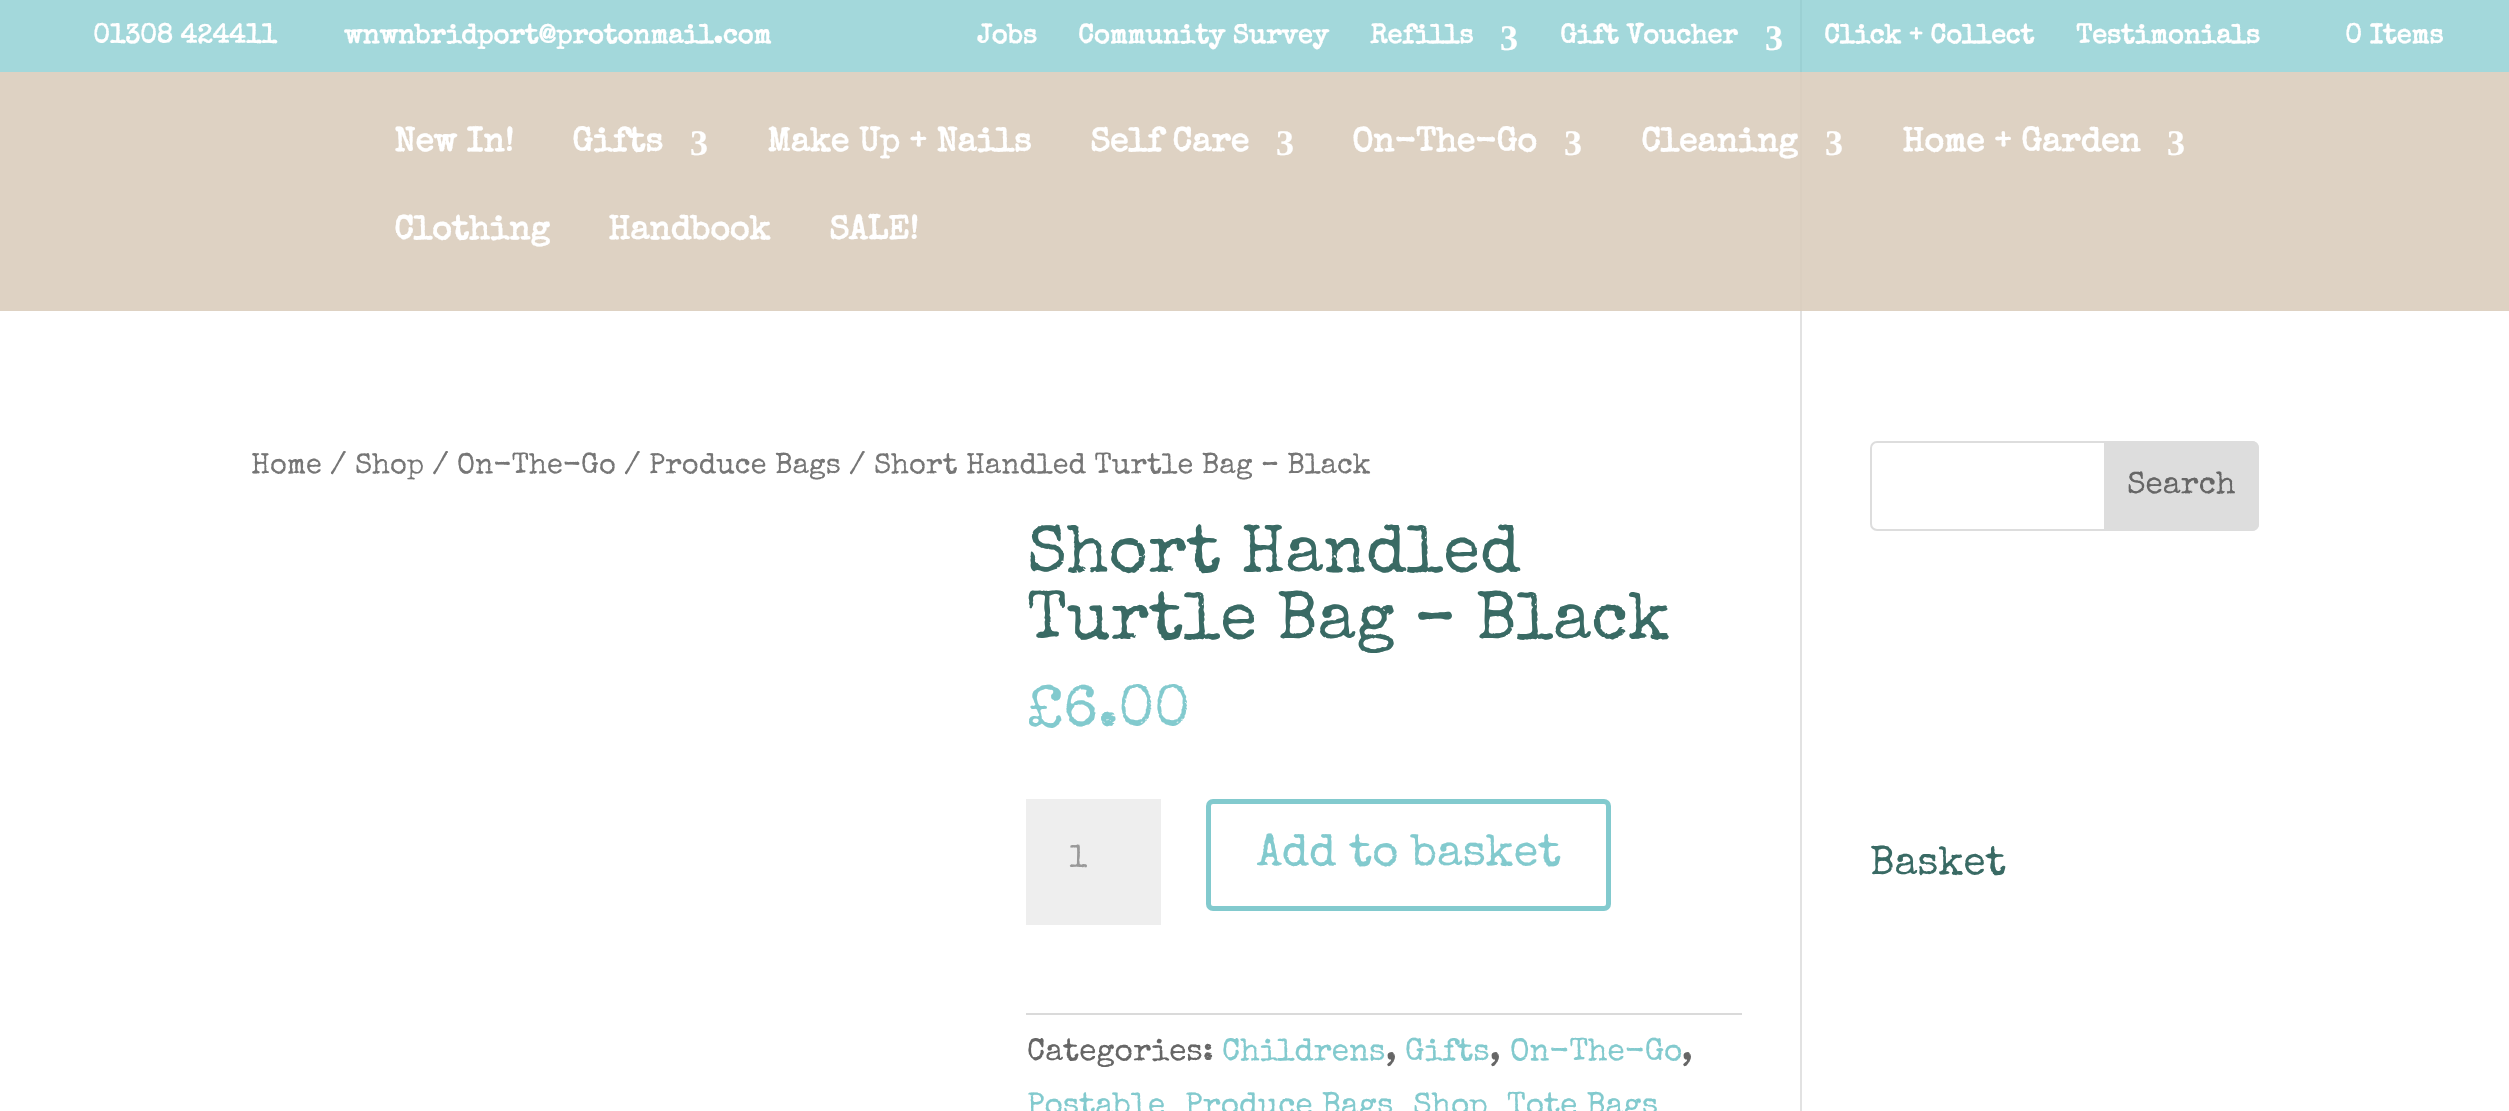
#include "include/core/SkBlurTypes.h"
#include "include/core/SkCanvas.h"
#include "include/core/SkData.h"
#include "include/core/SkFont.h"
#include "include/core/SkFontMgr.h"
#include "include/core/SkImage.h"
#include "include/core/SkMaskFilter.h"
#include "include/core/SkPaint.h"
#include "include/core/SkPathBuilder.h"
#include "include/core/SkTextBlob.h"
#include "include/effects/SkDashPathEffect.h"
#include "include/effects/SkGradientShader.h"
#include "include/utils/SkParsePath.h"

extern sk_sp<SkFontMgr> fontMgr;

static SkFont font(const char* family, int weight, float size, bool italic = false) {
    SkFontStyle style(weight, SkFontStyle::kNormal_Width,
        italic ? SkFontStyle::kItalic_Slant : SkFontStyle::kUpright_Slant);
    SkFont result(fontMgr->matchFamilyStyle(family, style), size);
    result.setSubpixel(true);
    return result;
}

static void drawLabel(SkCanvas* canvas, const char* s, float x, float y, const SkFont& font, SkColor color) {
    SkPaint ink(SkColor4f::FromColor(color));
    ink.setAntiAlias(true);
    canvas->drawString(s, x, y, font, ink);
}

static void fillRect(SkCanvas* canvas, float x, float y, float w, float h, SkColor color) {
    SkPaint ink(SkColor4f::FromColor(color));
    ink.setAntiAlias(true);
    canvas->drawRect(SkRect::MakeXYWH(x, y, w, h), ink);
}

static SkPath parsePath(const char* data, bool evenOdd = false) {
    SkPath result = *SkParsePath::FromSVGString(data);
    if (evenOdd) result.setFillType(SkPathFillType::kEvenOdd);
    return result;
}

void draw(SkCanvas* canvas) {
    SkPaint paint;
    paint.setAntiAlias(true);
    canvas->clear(0xFFFFFFFF);
    fillRect(canvas, 0, 0, 2509, 72, 0xFFA3D8DB);
    fillRect(canvas, 0, 72, 2509, 239, 0xFFDED2C3);
    SkFont font1 = font("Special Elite", 700, 27);
    drawLabel(canvas, "01308 424411", 93, 43, font1, 0xFFFFFFFF);
    drawLabel(canvas, "wnwnbridport@protonmail.com", 344, 43, font1, 0xFFFFFFFF);
    drawLabel(canvas, "Jobs", 977, 43, font1, 0xFFFFFFFF);
    drawLabel(canvas, "Community Survey", 1078, 43, font1, 0xFFFFFFFF);
    drawLabel(canvas, "Refills", 1370, 43, font1, 0xFFFFFFFF);
    SkFont font2 = font("Liberation Serif", 700, 36);
    drawLabel(canvas, "3", 1500, 50, font2, 0xFFFFFFFF);
    drawLabel(canvas, "Gift Voucher", 1560, 43, font1, 0xFFFFFFFF);
    drawLabel(canvas, "3", 1765, 50, font2, 0xFFFFFFFF);
    drawLabel(canvas, "Click + Collect", 1824, 43, font1, 0xFFFFFFFF);
    drawLabel(canvas, "Testimonials", 2076, 43, font1, 0xFFFFFFFF);
    drawLabel(canvas, "0 Items", 2345, 43, font1, 0xFFFFFFFF);
    SkFont font3 = font("Special Elite", 700, 33.75f);
    drawLabel(canvas, "New In!", 394, 151, font3, 0xFFFFFFFF);
    drawLabel(canvas, "Gifts", 572, 151, font3, 0xFFFFFFFF);
    drawLabel(canvas, "3", 690, 155, font2, 0xFFFFFFFF);
    drawLabel(canvas, "Make Up + Nails", 767, 151, font3, 0xFFFFFFFF);
    drawLabel(canvas, "Self Care", 1090, 151, font3, 0xFFFFFFFF);
    drawLabel(canvas, "3", 1276, 155, font2, 0xFFFFFFFF);
    drawLabel(canvas, "On-The-Go", 1352, 151, font3, 0xFFFFFFFF);
    drawLabel(canvas, "3", 1564, 155, font2, 0xFFFFFFFF);
    drawLabel(canvas, "Cleaning", 1641, 151, font3, 0xFFFFFFFF);
    drawLabel(canvas, "3", 1825, 155, font2, 0xFFFFFFFF);
    drawLabel(canvas, "Home + Garden", 1902, 151, font3, 0xFFFFFFFF);
    drawLabel(canvas, "3", 2167, 155, font2, 0xFFFFFFFF);
    drawLabel(canvas, "Clothing", 394, 239, font3, 0xFFFFFFFF);
    drawLabel(canvas, "Handbook", 608, 239, font3, 0xFFFFFFFF);
    drawLabel(canvas, "SALE!", 829, 239, font3, 0xFFFFFFFF);
    fillRect(canvas, 1800, 311, 2, 800, 0xFFE2E2E2);
    fillRect(canvas, 1800, 0, 2, 72, 0xFF9BD0D3);
    fillRect(canvas, 1800, 72, 2, 239, 0xFFDBCFC0);
    SkFont font4 = font("Special Elite", 400, 29);
    drawLabel(canvas, "Home / Shop / On-The-Go / Produce Bags / Short Handled Turtle Bag – Black", 251, 473, font4, 0xFF767676);
    SkFont font5 = font("Special Elite", 400, 67.5f);
    drawLabel(canvas, "Short Handled", 1027, 571, font5, 0xFF396A64);
    drawLabel(canvas, "Turtle Bag – Black", 1027, 638, font5, 0xFF396A64);
    SkFont font6 = font("Special Elite", 400, 58.5f);
    drawLabel(canvas, "£6.00", 1027, 726, font6, 0xFF82CACE);
    fillRect(canvas, 1026, 799, 135, 126, 0xFFEEEEEE);
    SkFont font7 = font("Special Elite", 400, 31.5f);
    drawLabel(canvas, "1", 1069, 867, font7, 0xFF999999);
    paint.setStroke(true);
    paint.setStrokeWidth(5);
    paint.setColor(0xFF82CACE);
    canvas->drawRoundRect(SkRect::MakeXYWH(1208.5f, 801.5f, 400, 107), 4.5f, 4.5f, paint);
    SkFont font8 = font("Special Elite", 400, 45);
    drawLabel(canvas, "Add to basket", 1257, 865, font8, 0xFF82CACE);
    fillRect(canvas, 1026, 1013, 716, 2, 0xFFDADADA);
    drawLabel(canvas, "Categories:", 1027, 1060, font7, 0xFF666666);
    drawLabel(canvas, "Childrens", 1222, 1060, font7, 0xFF82CACE);
    drawLabel(canvas, ",", 1386, 1060, font7, 0xFF666666);
    drawLabel(canvas, "Gifts", 1405, 1060, font7, 0xFF82CACE);
    drawLabel(canvas, ",", 1490, 1060, font7, 0xFF666666);
    drawLabel(canvas, "On-The-Go", 1510, 1060, font7, 0xFF82CACE);
    drawLabel(canvas, ",", 1682, 1060, font7, 0xFF666666);
    drawLabel(canvas, "Postable", 1027, 1114, font7, 0xFF82CACE);
    drawLabel(canvas, "Produce Bags", 1185, 1114, font7, 0xFF82CACE);
    drawLabel(canvas, "Shop", 1413, 1114, font7, 0xFF82CACE);
    drawLabel(canvas, "Tote Bags", 1507, 1114, font7, 0xFF82CACE);
    paint.setStrokeWidth(2);
    paint.setColor(0xFFDDDDDD);
    canvas->drawRoundRect(SkRect::MakeXYWH(1871, 442, 387, 88), 6, 6, paint);
    paint.setStroke(false);
    canvas->drawPath(parsePath("M2105 442H2252C2255.5 442 2258 444.5 2258 448V524C2258 527.5 2255.5 530 2252 530H2105Z"), paint);
    paint.setStroke(true);
    canvas->drawPath(parsePath("M2105 442H2252C2255.5 442 2258 444.5 2258 448V524C2258 527.5 2255.5 530 2252 530H2105Z"), paint);
    drawLabel(canvas, "Search", 2127, 493, font7, 0xFF666666);
    SkFont font9 = font("Special Elite", 400, 40.5f);
    drawLabel(canvas, "Basket", 1870, 874, font9, 0xFF396A64);
}
